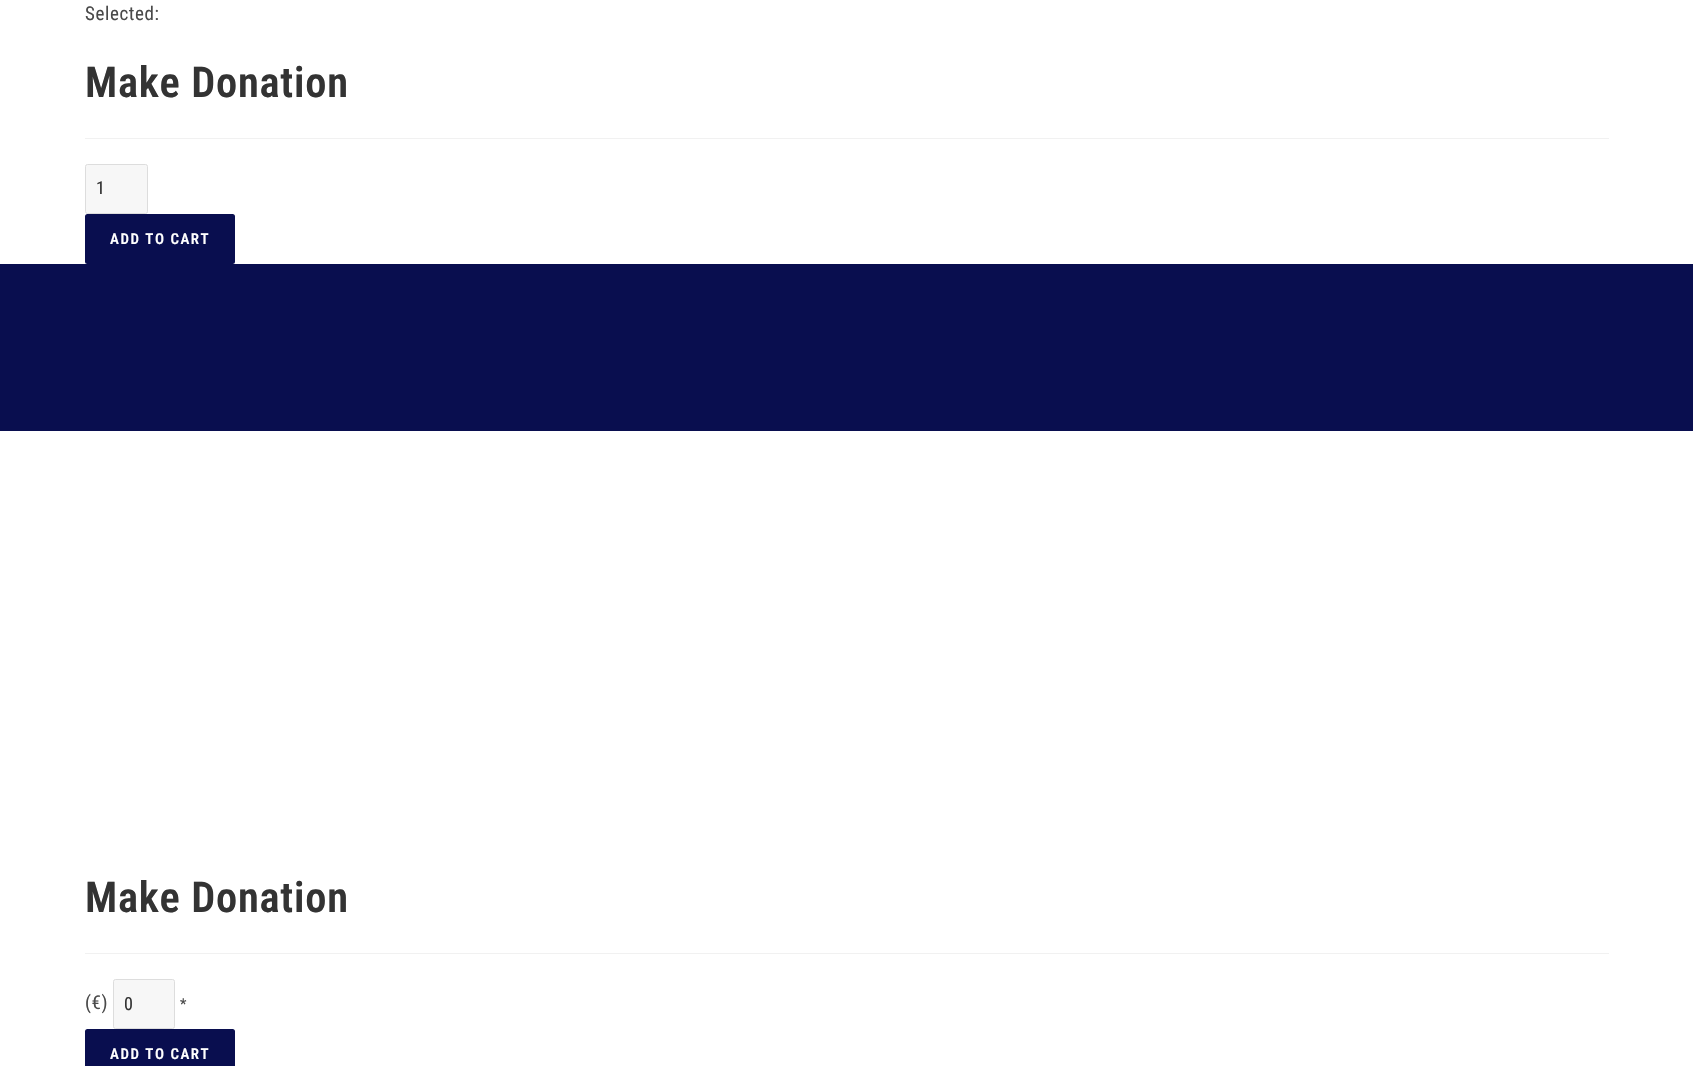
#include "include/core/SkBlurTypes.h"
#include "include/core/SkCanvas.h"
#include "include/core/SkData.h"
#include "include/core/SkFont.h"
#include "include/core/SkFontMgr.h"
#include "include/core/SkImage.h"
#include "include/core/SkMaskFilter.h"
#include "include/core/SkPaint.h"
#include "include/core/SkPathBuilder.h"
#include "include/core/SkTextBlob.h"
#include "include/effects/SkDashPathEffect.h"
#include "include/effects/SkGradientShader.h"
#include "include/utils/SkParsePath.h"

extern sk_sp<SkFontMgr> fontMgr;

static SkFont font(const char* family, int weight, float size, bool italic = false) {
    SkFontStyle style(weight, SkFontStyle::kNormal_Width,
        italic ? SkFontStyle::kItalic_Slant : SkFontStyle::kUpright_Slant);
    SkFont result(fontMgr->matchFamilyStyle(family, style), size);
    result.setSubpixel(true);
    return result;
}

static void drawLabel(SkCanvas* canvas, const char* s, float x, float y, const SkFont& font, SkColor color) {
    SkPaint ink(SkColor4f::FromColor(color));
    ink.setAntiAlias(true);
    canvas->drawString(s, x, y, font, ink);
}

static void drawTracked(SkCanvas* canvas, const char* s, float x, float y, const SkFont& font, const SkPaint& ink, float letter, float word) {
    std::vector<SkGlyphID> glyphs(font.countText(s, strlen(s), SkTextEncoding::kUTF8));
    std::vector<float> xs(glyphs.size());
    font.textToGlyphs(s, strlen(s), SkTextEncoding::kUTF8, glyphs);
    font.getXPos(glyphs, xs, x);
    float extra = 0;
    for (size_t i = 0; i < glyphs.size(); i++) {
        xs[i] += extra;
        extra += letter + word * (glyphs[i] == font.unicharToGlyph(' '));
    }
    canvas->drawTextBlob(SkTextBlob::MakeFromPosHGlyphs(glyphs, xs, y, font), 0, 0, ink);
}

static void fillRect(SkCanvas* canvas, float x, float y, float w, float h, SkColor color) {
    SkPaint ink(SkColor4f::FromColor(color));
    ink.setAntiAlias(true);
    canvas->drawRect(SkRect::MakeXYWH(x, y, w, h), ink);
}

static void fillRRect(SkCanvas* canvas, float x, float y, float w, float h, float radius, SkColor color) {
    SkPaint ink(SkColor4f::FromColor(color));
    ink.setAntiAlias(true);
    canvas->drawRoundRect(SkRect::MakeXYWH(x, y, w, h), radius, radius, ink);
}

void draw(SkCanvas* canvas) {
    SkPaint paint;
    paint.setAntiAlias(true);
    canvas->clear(0xFFFFFFFF);
    SkFont font1 = font("Roboto Condensed", 400, 19);
    paint.setColor(0xFF4A4A4A);
    drawTracked(canvas, "Selected:", 85, 20, font1, paint, 0.6f, 0);
    fillRect(canvas, 85, 138, 1524, 1, 0xFFF1F1F1);
    SkFont font2 = font("Roboto Condensed", 600, 42.5f);
    paint.setColor(0xFF333333);
    drawTracked(canvas, "Make Donation", 85, 97, font2, paint, 0.75f, 0);
    paint.setColor(0xFFF7F7F7);
    canvas->drawRoundRect(SkRect::MakeXYWH(85.5f, 164.5f, 62, 49), 2, 2, paint);
    paint.setStroke(true);
    paint.setStrokeWidth(1);
    paint.setColor(0xFFDDDDDD);
    canvas->drawRoundRect(SkRect::MakeXYWH(85.5f, 164.5f, 62, 49), 2, 2, paint);
    SkFont font3 = font("Roboto Condensed", 400, 18);
    drawLabel(canvas, "1", 96, 194, font3, 0xFF333333);
    fillRRect(canvas, 85, 214, 150, 50, 2.5f, 0xFF090E4F);
    SkFont font4 = font("Roboto Condensed", 600, 15);
    paint.setStroke(false);
    paint.setColor(0xFFFFFFFF);
    drawTracked(canvas, "ADD TO CART", 110, 244, font4, paint, 1.5f, 0);
    fillRect(canvas, 0, 264, 1693, 167, 0xFF090E4F);
    fillRect(canvas, 85, 953, 1524, 1, 0xFFF1F1F1);
    paint.setColor(0xFF333333);
    drawTracked(canvas, "Make Donation", 85, 912, font2, paint, 0.75f, 0);
    paint.setColor(0xFF4A4A4A);
    drawTracked(canvas, "(€)", 85, 1009, font1, paint, 0.6f, 0);
    paint.setColor(0xFFF7F7F7);
    canvas->drawRoundRect(SkRect::MakeXYWH(113.5f, 979.5f, 61, 49), 2, 2, paint);
    paint.setStroke(true);
    paint.setColor(0xFFDDDDDD);
    canvas->drawRoundRect(SkRect::MakeXYWH(113.5f, 979.5f, 61, 49), 2, 2, paint);
    drawLabel(canvas, "0", 124, 1010, font3, 0xFF333333);
    SkFont font5 = font("Roboto Condensed", 400, 15);
    paint.setStroke(false);
    paint.setColor(0xFF4A4A4A);
    drawTracked(canvas, "*", 180, 1009, font5, paint, 0.6f, 0);
    fillRRect(canvas, 85, 1029, 150, 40, 2.5f, 0xFF090E4F);
    paint.setColor(0xFFFFFFFF);
    drawTracked(canvas, "ADD TO CART", 110, 1059, font4, paint, 1.5f, 0);
}
